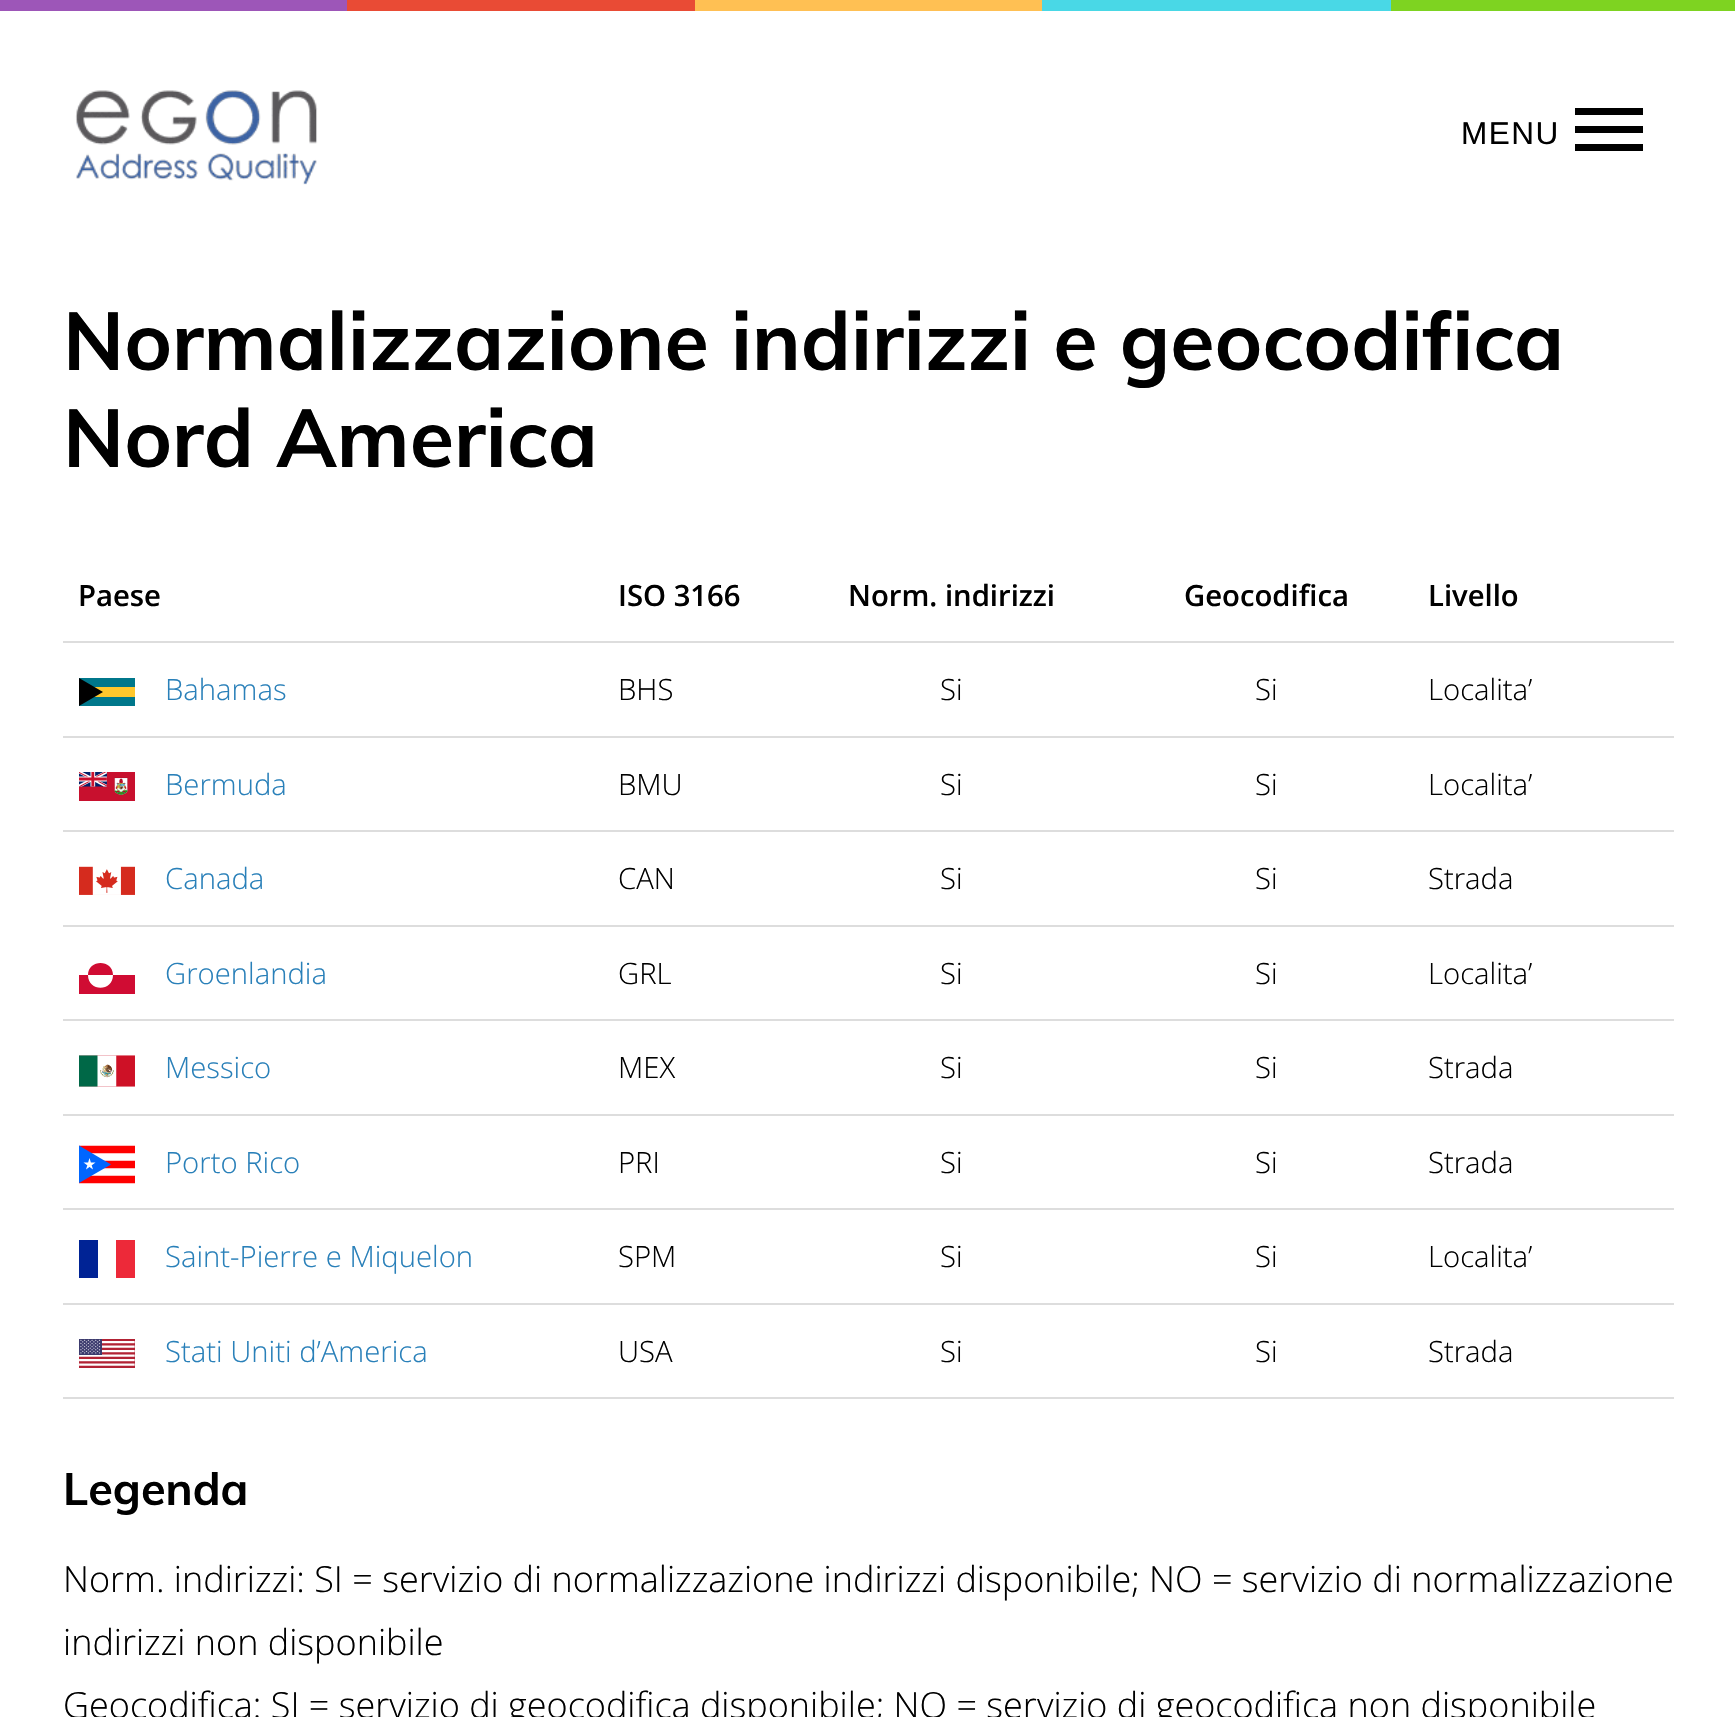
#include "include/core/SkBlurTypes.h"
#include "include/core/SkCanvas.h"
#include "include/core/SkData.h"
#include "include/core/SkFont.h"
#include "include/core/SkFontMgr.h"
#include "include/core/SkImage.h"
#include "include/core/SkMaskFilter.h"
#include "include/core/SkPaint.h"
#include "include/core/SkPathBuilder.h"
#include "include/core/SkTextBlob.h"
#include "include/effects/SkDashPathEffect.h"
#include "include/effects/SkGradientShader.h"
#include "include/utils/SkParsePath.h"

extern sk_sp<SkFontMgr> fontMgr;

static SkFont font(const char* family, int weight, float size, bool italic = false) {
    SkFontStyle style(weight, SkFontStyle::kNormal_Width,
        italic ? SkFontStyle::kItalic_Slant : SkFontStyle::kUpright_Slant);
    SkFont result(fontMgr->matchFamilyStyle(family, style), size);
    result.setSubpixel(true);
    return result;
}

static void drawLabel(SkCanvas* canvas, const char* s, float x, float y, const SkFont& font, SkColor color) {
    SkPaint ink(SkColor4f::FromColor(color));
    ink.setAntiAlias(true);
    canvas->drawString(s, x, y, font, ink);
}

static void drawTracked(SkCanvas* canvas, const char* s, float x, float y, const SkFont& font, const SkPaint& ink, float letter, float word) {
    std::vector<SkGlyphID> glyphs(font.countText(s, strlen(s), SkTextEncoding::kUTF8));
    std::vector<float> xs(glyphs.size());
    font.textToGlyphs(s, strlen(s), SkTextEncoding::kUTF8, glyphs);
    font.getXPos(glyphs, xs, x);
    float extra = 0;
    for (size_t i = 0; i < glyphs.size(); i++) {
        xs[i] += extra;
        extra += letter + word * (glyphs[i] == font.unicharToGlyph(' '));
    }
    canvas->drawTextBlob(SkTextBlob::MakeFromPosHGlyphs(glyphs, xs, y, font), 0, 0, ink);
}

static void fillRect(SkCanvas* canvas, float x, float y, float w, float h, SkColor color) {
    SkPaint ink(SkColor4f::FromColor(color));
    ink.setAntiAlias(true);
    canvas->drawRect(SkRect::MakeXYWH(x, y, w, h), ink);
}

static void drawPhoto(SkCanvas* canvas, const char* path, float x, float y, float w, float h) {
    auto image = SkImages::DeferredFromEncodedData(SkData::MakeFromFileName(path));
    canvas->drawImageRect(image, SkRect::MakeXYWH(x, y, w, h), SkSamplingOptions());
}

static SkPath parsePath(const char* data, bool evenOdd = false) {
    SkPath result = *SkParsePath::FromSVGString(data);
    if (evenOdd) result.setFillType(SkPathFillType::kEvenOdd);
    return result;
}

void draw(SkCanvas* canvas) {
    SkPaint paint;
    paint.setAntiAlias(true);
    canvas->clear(0xFFFFFFFF);
    fillRect(canvas, 0, 0, 347, 11, 0xFF9D56B8);
    fillRect(canvas, 347, 0, 348, 11, 0xFFE94B35);
    fillRect(canvas, 695, 0, 347, 11, 0xFFFFC053);
    fillRect(canvas, 1042, 0, 349, 11, 0xFF49D8E6);
    fillRect(canvas, 1391, 0, 344, 11, 0xFF7ED321);
    drawPhoto(canvas, "assets/img1.png", 75, 90, 243, 95);
    SkFont font1 = font("Liberation Sans", 400, 31.5f);
    paint.setColor(0xFF000000);
    drawTracked(canvas, "MENU", 1461, 144, font1, paint, 1.5f, 0);
    fillRect(canvas, 1575, 108, 68, 7, 0xFF000000);
    fillRect(canvas, 1575, 126, 68, 7, 0xFF000000);
    fillRect(canvas, 1575, 144, 68, 7, 0xFF000000);
    SkFont font2 = font("Muli", 700, 81);
    drawLabel(canvas, "Normalizzazione indirizzi e geocodifica", 63, 370, font2, 0xFF000000);
    drawLabel(canvas, "Nord America", 63, 467, font2, 0xFF000000);
    fillRect(canvas, 63, 641, 1611, 2, 0xFFDDDDDD);
    SkFont font3 = font("Open Sans", 600, 29.25f);
    drawLabel(canvas, "Paese", 78, 606, font3, 0xFF000000);
    drawLabel(canvas, "ISO 3166", 618, 606, font3, 0xFF000000);
    drawLabel(canvas, "Norm. indirizzi", 848, 606, font3, 0xFF000000);
    drawLabel(canvas, "Geocodifica", 1184, 606, font3, 0xFF000000);
    drawLabel(canvas, "Livello", 1428, 606, font3, 0xFF000000);
    fillRect(canvas, 63, 736, 1611, 2, 0xFFDDDDDD);
    SkFont font4 = font("Open Sans", 300, 29.25f);
    drawLabel(canvas, "Bahamas", 165, 700, font4, 0xFF2980B9);
    fillRect(canvas, 79, 678, 56, 28, 0xFF00778B);
    fillRect(canvas, 94, 687, 41, 10, 0xFFFFC72C);
    canvas->drawPath(parsePath("M79 678V706L103 692Z"), paint);
    drawLabel(canvas, "BHS", 618, 700, font4, 0xFF000000);
    drawLabel(canvas, "Si", 940, 700, font4, 0xFF000000);
    drawLabel(canvas, "Si", 1255, 700, font4, 0xFF000000);
    drawLabel(canvas, "Localita’", 1428, 700, font4, 0xFF000000);
    fillRect(canvas, 63, 830, 1611, 2, 0xFFDDDDDD);
    drawPhoto(canvas, "assets/img2.png", 79, 772, 56, 29);
    drawLabel(canvas, "Bermuda", 165, 795, font4, 0xFF2980B9);
    drawLabel(canvas, "BMU", 618, 795, font4, 0xFF000000);
    drawLabel(canvas, "Si", 940, 795, font4, 0xFF000000);
    drawLabel(canvas, "Si", 1255, 795, font4, 0xFF000000);
    drawLabel(canvas, "Localita’", 1428, 795, font4, 0xFF000000);
    fillRect(canvas, 63, 925, 1611, 2, 0xFFDDDDDD);
    drawPhoto(canvas, "assets/img3.png", 79, 866, 56, 29);
    drawLabel(canvas, "Canada", 165, 889, font4, 0xFF2980B9);
    drawLabel(canvas, "CAN", 618, 889, font4, 0xFF000000);
    drawLabel(canvas, "Si", 940, 889, font4, 0xFF000000);
    drawLabel(canvas, "Si", 1255, 889, font4, 0xFF000000);
    drawLabel(canvas, "Strada", 1428, 889, font4, 0xFF000000);
    fillRect(canvas, 63, 1019, 1611, 2, 0xFFDDDDDD);
    drawLabel(canvas, "Groenlandia", 165, 984, font4, 0xFF2980B9);
    paint.setColor(0xFFD00C33);
    canvas->drawPath(parsePath("M79 975H135V994H79ZM88 975C88 992 113 992 113 975C113 959 88 959 88 975"), paint);
    drawLabel(canvas, "GRL", 618, 984, font4, 0xFF000000);
    drawLabel(canvas, "Si", 940, 984, font4, 0xFF000000);
    drawLabel(canvas, "Si", 1255, 984, font4, 0xFF000000);
    drawLabel(canvas, "Localita’", 1428, 984, font4, 0xFF000000);
    fillRect(canvas, 63, 1114, 1611, 2, 0xFFDDDDDD);
    drawPhoto(canvas, "assets/img4.png", 79, 1055, 56, 32);
    drawLabel(canvas, "Messico", 165, 1078, font4, 0xFF2980B9);
    drawLabel(canvas, "MEX", 618, 1078, font4, 0xFF000000);
    drawLabel(canvas, "Si", 940, 1078, font4, 0xFF000000);
    drawLabel(canvas, "Si", 1255, 1078, font4, 0xFF000000);
    drawLabel(canvas, "Strada", 1428, 1078, font4, 0xFF000000);
    fillRect(canvas, 63, 1208, 1611, 2, 0xFFDDDDDD);
    drawLabel(canvas, "Porto Rico", 165, 1173, font4, 0xFF2980B9);
    paint.setStroke(true);
    paint.setStrokeWidth(7.5f);
    paint.setColor(0xFFFF0000);
    canvas->drawPath(parsePath("M79 1149.5H135M135 1164.5H79M79 1179.5H135"), paint);
    paint.setStroke(false);
    paint.setColor(0xFF0066FF);
    canvas->drawPath(parsePath("M79 1145.5V1183L111 1164.5"), paint);
    paint.setColor(0xFFFFFFFF);
    canvas->drawPath(parsePath("M86 1169.5L89.5 1158L93 1169.5L83.5 1162.5H95.5"), paint);
    drawLabel(canvas, "PRI", 618, 1173, font4, 0xFF000000);
    drawLabel(canvas, "Si", 940, 1173, font4, 0xFF000000);
    drawLabel(canvas, "Si", 1255, 1173, font4, 0xFF000000);
    drawLabel(canvas, "Strada", 1428, 1173, font4, 0xFF000000);
    fillRect(canvas, 63, 1303, 1611, 2, 0xFFDDDDDD);
    drawLabel(canvas, "Saint-Pierre e Miquelon", 165, 1267, font4, 0xFF2980B9);
    fillRect(canvas, 116, 1240, 19, 38, 0xFFED2939);
    fillRect(canvas, 79, 1240, 19, 38, 0xFF002395);
    drawLabel(canvas, "SPM", 618, 1267, font4, 0xFF000000);
    drawLabel(canvas, "Si", 940, 1267, font4, 0xFF000000);
    drawLabel(canvas, "Si", 1255, 1267, font4, 0xFF000000);
    drawLabel(canvas, "Localita’", 1428, 1267, font4, 0xFF000000);
    fillRect(canvas, 63, 1397, 1611, 2, 0xFFDDDDDD);
    drawPhoto(canvas, "assets/img5.png", 79, 1339, 56, 29);
    drawLabel(canvas, "Stati Uniti d’America", 165, 1362, font4, 0xFF2980B9);
    drawLabel(canvas, "USA", 618, 1362, font4, 0xFF000000);
    drawLabel(canvas, "Si", 940, 1362, font4, 0xFF000000);
    drawLabel(canvas, "Si", 1255, 1362, font4, 0xFF000000);
    drawLabel(canvas, "Strada", 1428, 1362, font4, 0xFF000000);
    SkFont font5 = font("Muli", 700, 45);
    drawLabel(canvas, "Legenda", 63, 1505, font5, 0xFF000000);
    SkFont font6 = font("Open Sans", 300, 36);
    drawLabel(canvas, "Norm. indirizzi: SI = servizio di normalizzazione indirizzi disponibile; NO = servizio di normalizzazione", 63, 1592, font6, 0xFF000000);
    drawLabel(canvas, "indirizzi non disponibile", 63, 1655, font6, 0xFF000000);
    drawLabel(canvas, "Geocodifica: SI = servizio di geocodifica disponibile; NO = servizio di geocodifica non disponibile", 63, 1718, font6, 0xFF000000);
}
